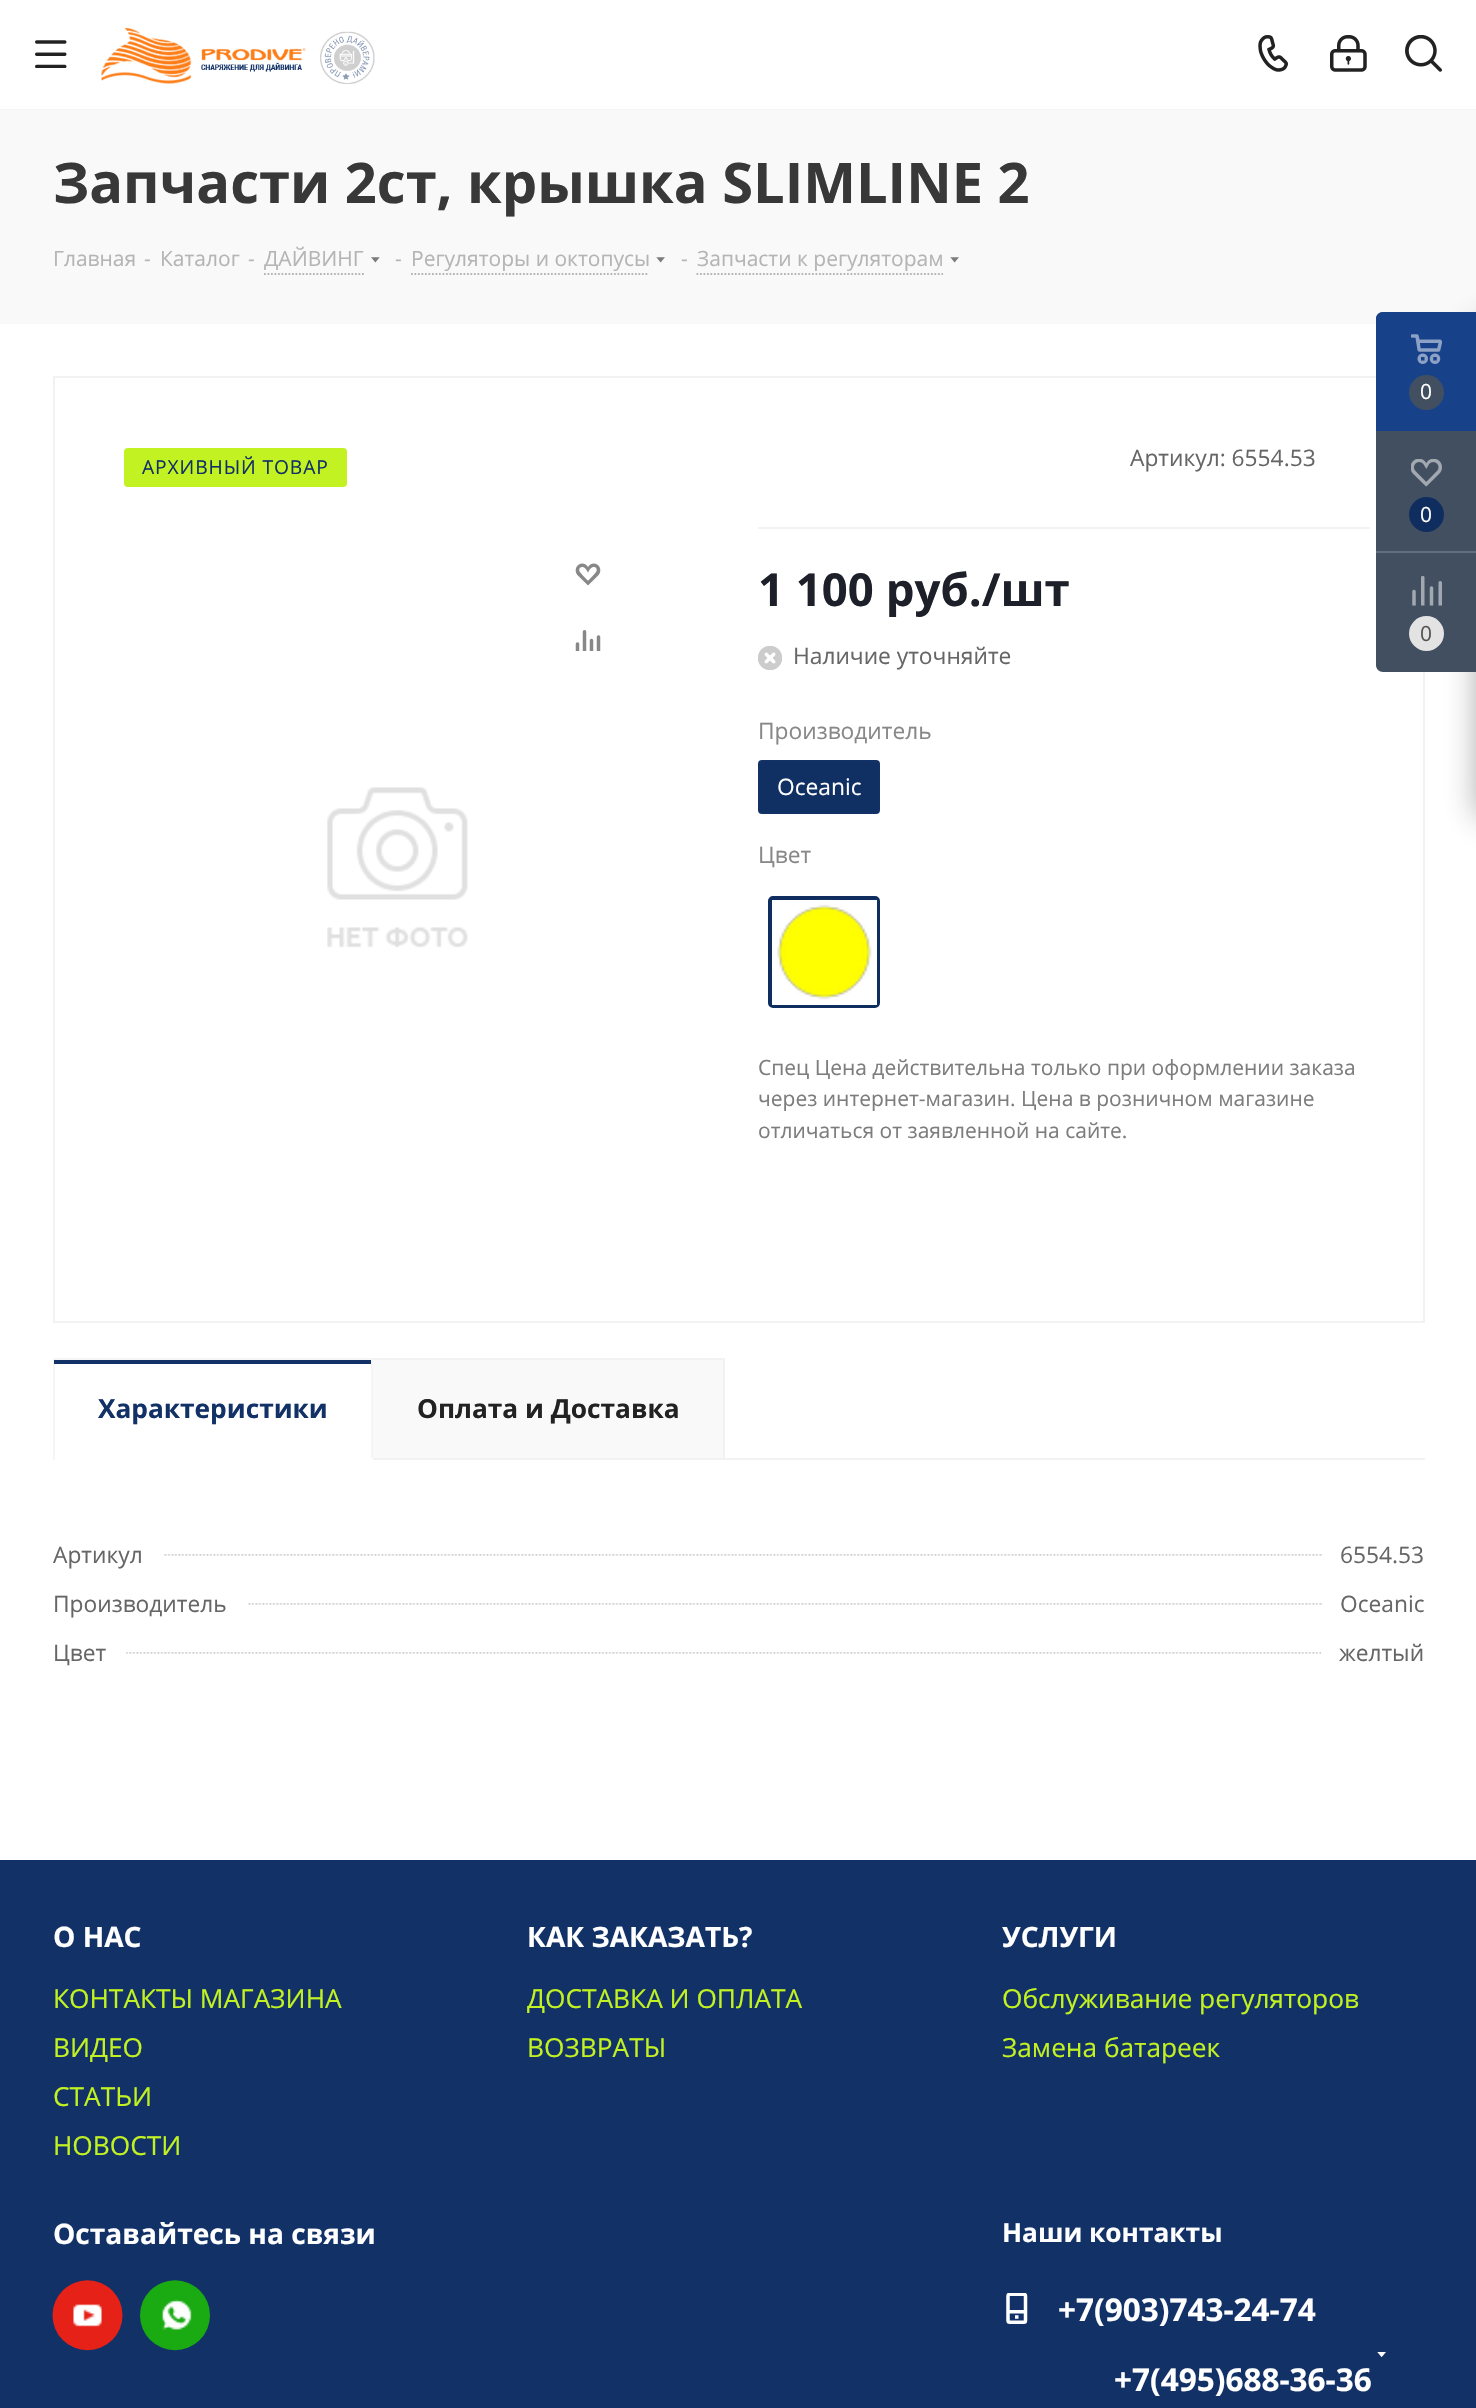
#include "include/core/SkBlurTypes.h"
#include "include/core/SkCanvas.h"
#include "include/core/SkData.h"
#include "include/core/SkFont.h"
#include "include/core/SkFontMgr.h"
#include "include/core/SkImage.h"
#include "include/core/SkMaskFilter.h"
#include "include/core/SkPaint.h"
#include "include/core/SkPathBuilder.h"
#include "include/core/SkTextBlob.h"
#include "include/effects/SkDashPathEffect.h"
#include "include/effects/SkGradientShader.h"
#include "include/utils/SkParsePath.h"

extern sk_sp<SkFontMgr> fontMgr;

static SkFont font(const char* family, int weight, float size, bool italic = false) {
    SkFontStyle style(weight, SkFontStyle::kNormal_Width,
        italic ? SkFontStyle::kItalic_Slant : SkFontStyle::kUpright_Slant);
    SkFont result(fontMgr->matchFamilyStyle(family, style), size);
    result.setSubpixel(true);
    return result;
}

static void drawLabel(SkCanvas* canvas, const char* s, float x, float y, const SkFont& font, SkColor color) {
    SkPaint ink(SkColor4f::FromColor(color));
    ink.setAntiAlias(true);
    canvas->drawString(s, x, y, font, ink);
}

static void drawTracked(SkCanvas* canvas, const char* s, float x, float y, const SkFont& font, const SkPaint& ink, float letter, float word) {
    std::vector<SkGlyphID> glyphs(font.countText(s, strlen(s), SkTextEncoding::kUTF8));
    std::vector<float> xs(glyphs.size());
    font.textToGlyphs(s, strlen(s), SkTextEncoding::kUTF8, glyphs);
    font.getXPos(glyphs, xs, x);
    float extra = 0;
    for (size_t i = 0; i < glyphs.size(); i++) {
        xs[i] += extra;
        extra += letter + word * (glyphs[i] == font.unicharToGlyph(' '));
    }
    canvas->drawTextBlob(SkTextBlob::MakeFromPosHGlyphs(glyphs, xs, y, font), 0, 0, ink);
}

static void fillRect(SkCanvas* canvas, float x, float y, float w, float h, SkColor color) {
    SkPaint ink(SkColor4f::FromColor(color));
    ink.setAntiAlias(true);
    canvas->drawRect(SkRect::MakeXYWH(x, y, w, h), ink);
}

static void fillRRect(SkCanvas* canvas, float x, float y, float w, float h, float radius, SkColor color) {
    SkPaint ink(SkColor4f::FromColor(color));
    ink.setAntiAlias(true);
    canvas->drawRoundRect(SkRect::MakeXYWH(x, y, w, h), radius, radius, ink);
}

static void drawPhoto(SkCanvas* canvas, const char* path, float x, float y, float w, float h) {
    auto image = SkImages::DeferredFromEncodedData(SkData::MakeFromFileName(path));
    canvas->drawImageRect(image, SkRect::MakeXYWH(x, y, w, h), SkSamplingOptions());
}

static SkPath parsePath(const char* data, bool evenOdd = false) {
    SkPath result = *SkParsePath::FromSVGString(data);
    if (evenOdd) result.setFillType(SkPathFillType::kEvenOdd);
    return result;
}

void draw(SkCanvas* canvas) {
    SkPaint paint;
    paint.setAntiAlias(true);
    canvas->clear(0xFFFFFFFF);
    fillRect(canvas, 0, 109, 1476, 1, 0xFFF5F5F5);
    drawPhoto(canvas, "assets/img1.png", 35, 40, 32, 28);
    drawPhoto(canvas, "assets/img2.png", 101, 28, 274, 56);
    drawPhoto(canvas, "assets/img3.png", 1258, 35, 30, 37);
    drawPhoto(canvas, "assets/img4.png", 1330, 35, 37, 37);
    drawPhoto(canvas, "assets/img5.png", 1405, 35, 37, 37);
    fillRect(canvas, 0, 110, 1476, 214, 0xFFF9F9F9);
    SkFont font1 = font("Open Sans", 700, 56);
    drawLabel(canvas, "Запчасти 2ст, крышка SLIMLINE 2", 53, 203, font1, 0xFF383838);
    SkFont font2 = font("Open Sans", 400, 21);
    drawLabel(canvas, "Главная", 53, 266, font2, 0xFFB6B5B5);
    drawLabel(canvas, "-", 144, 266, font2, 0xFFB6B5B5);
    drawLabel(canvas, "Каталог", 160, 266, font2, 0xFFB6B5B5);
    drawLabel(canvas, "-", 248, 266, font2, 0xFFB6B5B5);
    drawLabel(canvas, "ДАЙВИНГ", 264, 266, font2, 0xFFB6B5B5);
    paint.setStroke(true);
    paint.setStrokeWidth(1.8f);
    paint.setColor(0xFFB4B4B4);
    paint.setPathEffect(SkDashPathEffect::Make({{1.75f, 1.75f}}, 0));
    canvas->drawPath(parsePath("M264 274H364"), paint);
    paint.setPathEffect(nullptr);
    drawPhoto(canvas, "assets/img6.png", 371, 257, 9, 6);
    drawLabel(canvas, "-", 395, 266, font2, 0xFFB6B5B5);
    drawLabel(canvas, "Регуляторы и октопусы", 411, 266, font2, 0xFFB6B5B5);
    paint.setPathEffect(SkDashPathEffect::Make({{1.75f, 1.75f}}, 0));
    canvas->drawPath(parsePath("M411 274H649"), paint);
    paint.setPathEffect(nullptr);
    drawPhoto(canvas, "assets/img7.png", 656, 257, 9, 6);
    drawLabel(canvas, "-", 681, 266, font2, 0xFFB6B5B5);
    drawLabel(canvas, "Запчасти к регуляторам", 697, 266, font2, 0xFFB6B5B5);
    paint.setPathEffect(SkDashPathEffect::Make({{1.75f, 1.75f}}, 0));
    canvas->drawPath(parsePath("M696.5 274H943"), paint);
    paint.setPathEffect(nullptr);
    drawPhoto(canvas, "assets/img7.png", 950, 257, 9, 6);
    paint.setStrokeWidth(2);
    paint.setColor(0xFFF2F2F2);
    canvas->drawRect(SkRect::MakeXYWH(54, 377, 1370, 945), paint);
    fillRRect(canvas, 124, 448, 223, 39, 4, 0xFFC2F221);
    SkFont font3 = font("Open Sans", 400, 19.25f);
    paint.setStroke(false);
    paint.setColor(0xFF113167);
    drawTracked(canvas, "АРХИВНЫЙ ТОВАР", 142, 474, font3, paint, 0.9f, 0);
    drawPhoto(canvas, "assets/img8.png", 575, 563, 26, 23);
    drawPhoto(canvas, "assets/img9.png", 575, 630, 26, 21);
    drawPhoto(canvas, "assets/img10.png", 327, 787, 141, 161);
    fillRect(canvas, 758, 527, 612, 2, 0xFFF2F2F2);
    SkFont font4 = font("Open Sans", 400, 22.75f);
    drawLabel(canvas, "Артикул: 6554.53", 1130, 466, font4, 0xFF666666);
    SkFont font5 = font("Open Sans", 700, 45.5f);
    drawLabel(canvas, "1 100 руб./шт", 758, 606, font5, 0xFF1D2029);
    drawPhoto(canvas, "assets/img11.png", 758, 646, 24, 24);
    drawLabel(canvas, "Наличие уточняйте", 793, 664, font4, 0xFF666666);
    drawLabel(canvas, "Производитель", 758, 739, font4, 0xFF888888);
    paint.setColor(0xFF102F63);
    canvas->drawRoundRect(SkRect::MakeXYWH(759, 761, 120, 52), 3, 3, paint);
    paint.setStroke(true);
    paint.setColor(0xFF113167);
    canvas->drawRoundRect(SkRect::MakeXYWH(759, 761, 120, 52), 3, 3, paint);
    drawLabel(canvas, "Oceanic", 777, 795, font4, 0xFFFFFFFF);
    drawLabel(canvas, "Цвет", 758, 863, font4, 0xFF888888);
    paint.setStrokeWidth(4);
    paint.setColor(0xFF0F2D5F);
    canvas->drawRoundRect(SkRect::MakeXYWH(770, 898, 108, 108), 3, 3, paint);
    drawPhoto(canvas, "assets/img12.png", 771, 899, 102, 102);
    paint.setColor(0xFFFFFFFF);
    canvas->drawRect(SkRect::MakeXYWH(774, 902, 101, 101), paint);
    drawLabel(canvas, "Спец Цена действительна только при оформлении заказа", 758, 1075, font2, 0xFF7D7D7D);
    drawLabel(canvas, "через интернет-магазин. Цена в розничном магазине", 758, 1106, font2, 0xFF7D7D7D);
    drawLabel(canvas, "отличаться от заявленной на сайте.", 758, 1138, font2, 0xFF7D7D7D);
    fillRect(canvas, 725, 1458, 700, 2, 0xFFF2F2F2);
    paint.setStroke(false);
    paint.setColor(0xFFF9F9FA);
    canvas->drawRect(SkRect::MakeXYWH(372, 1359, 352, 100), paint);
    paint.setStroke(true);
    paint.setStrokeWidth(2);
    paint.setColor(0xFFF2F2F2);
    canvas->drawRect(SkRect::MakeXYWH(372, 1359, 352, 100), paint);
    fillRect(canvas, 53, 1358, 320, 2, 0xFFF5F5F5);
    fillRect(canvas, 371, 1358, 2, 102, 0xFFF5F5F5);
    fillRect(canvas, 371, 1458, 2, 2, 0xFFFFFFFF);
    fillRect(canvas, 53, 1358, 2, 102, 0xFFF5F5F5);
    fillRect(canvas, 54, 1360, 317, 4, 0xFF113167);
    SkFont font6 = font("Open Sans", 700, 26.25f);
    drawLabel(canvas, "Характеристики", 98, 1418, font6, 0xFF113167);
    drawLabel(canvas, "Оплата и Доставка", 417, 1418, font6, 0xFF222222);
    drawPhoto(canvas, "assets/img13.png", 163, 1554, 576, 2);
    drawLabel(canvas, "Артикул", 53, 1563, font4, 0xFF666666);
    drawPhoto(canvas, "assets/img14.png", 739, 1554, 584, 2);
    drawLabel(canvas, "6554.53", 1340, 1563, font4, 0xFF666666);
    drawPhoto(canvas, "assets/img15.png", 247, 1603, 492, 2);
    drawLabel(canvas, "Производитель", 53, 1612, font4, 0xFF666666);
    drawPhoto(canvas, "assets/img14.png", 739, 1603, 584, 2);
    drawLabel(canvas, "Oceanic", 1340, 1612, font4, 0xFF666666);
    drawPhoto(canvas, "assets/img16.png", 126, 1652, 613, 2);
    drawLabel(canvas, "Цвет", 53, 1661, font4, 0xFF666666);
    drawPhoto(canvas, "assets/img17.png", 739, 1652, 582, 2);
    drawLabel(canvas, "желтый", 1339, 1661, font4, 0xFF666666);
    paint.setStroke(false);
    paint.setColor(0x662C2C2C);
    paint.setMaskFilter(SkMaskFilter::MakeBlur(kNormal_SkBlurStyle, 16));
    canvas->drawRoundRect(SkRect::MakeXYWH(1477, 322, 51, 495), 4, 4, paint);
    paint.setMaskFilter(nullptr);
    paint.setColor(0xFF424F60);
    canvas->drawPath(parsePath("M1383 312H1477V672H1383C1379 672 1376 669 1376 665V319C1376 315 1379 312 1383 312Z"), paint);
    paint.setColor(0xFF17428A);
    canvas->drawPath(parsePath("M1383 312H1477V431H1376V319C1376 315 1379 312 1383 312Z"), paint);
    drawPhoto(canvas, "assets/img18.png", 1411, 334, 31, 30);
    paint.setColor(0xFF424F60);
    canvas->drawCircle(1426.5f, 392.5f, 17.5f, paint);
    drawLabel(canvas, "0", 1420, 399, font2, 0xFFFFFFFF);
    drawPhoto(canvas, "assets/img19.png", 1411, 459, 31, 28);
    paint.setColor(0xFF0F2D5F);
    canvas->drawCircle(1426.5f, 514.5f, 17.5f, paint);
    drawLabel(canvas, "0", 1420, 522, font2, 0xFFFFFFFF);
    fillRect(canvas, 1376, 551, 100, 2, 0xFF636F7D);
    drawPhoto(canvas, "assets/img20.png", 1412, 576, 30, 30);
    paint.setColor(0xFFE3E3E3);
    canvas->drawCircle(1426.5f, 633.5f, 17.5f, paint);
    drawLabel(canvas, "0", 1420, 641, font2, 0xFF555555);
    fillRect(canvas, 0, 1860, 1476, 548, 0xFF113167);
    SkFont font7 = font("Open Sans", 700, 28.1f);
    drawLabel(canvas, "О НАС", 53, 1947, font7, 0xFFFFFFFF);
    SkFont font8 = font("Open Sans", 400, 26.25f);
    drawLabel(canvas, "КОНТАКТЫ МАГАЗИНА", 53, 2008, font8, 0xFFC2F221);
    drawLabel(canvas, "ВИДЕО", 53, 2057, font8, 0xFFC2F221);
    drawLabel(canvas, "СТАТЬИ", 53, 2106, font8, 0xFFC2F221);
    drawLabel(canvas, "НОВОСТИ", 53, 2155, font8, 0xFFC2F221);
    drawLabel(canvas, "КАК ЗАКАЗАТЬ?", 527, 1947, font7, 0xFFFFFFFF);
    drawLabel(canvas, "ДОСТАВКА И ОПЛАТА", 527, 2008, font8, 0xFFC2F221);
    drawLabel(canvas, "ВОЗВРАТЫ", 527, 2057, font8, 0xFFC2F221);
    drawLabel(canvas, "УСЛУГИ", 1002, 1947, font7, 0xFFFFFFFF);
    drawLabel(canvas, "Обслуживание регуляторов", 1002, 2008, font8, 0xFFC2F221);
    drawLabel(canvas, "Замена батареек", 1002, 2057, font8, 0xFFC2F221);
    drawLabel(canvas, "Оставайтесь на связи", 53, 2244, font7, 0xFFFFFFFF);
    drawPhoto(canvas, "assets/img21.png", 52, 2280, 71, 71);
    drawPhoto(canvas, "assets/img22.png", 139, 2280, 71, 71);
    drawLabel(canvas, "Наши контакты", 1002, 2242, font6, 0xFFFFFFFF);
    drawPhoto(canvas, "assets/img23.png", 1006, 2293, 22, 31);
    SkFont font9 = font("Open Sans", 700, 31.5f);
    drawLabel(canvas, "+7(903)743-24-74", 1058, 2321, font9, 0xFFFFFFFF);
    drawPhoto(canvas, "assets/img24.png", 1377, 2352, 9, 5);
    drawLabel(canvas, "+7(495)688-36-36", 1114, 2391, font9, 0xFFFFFFFF);
}
